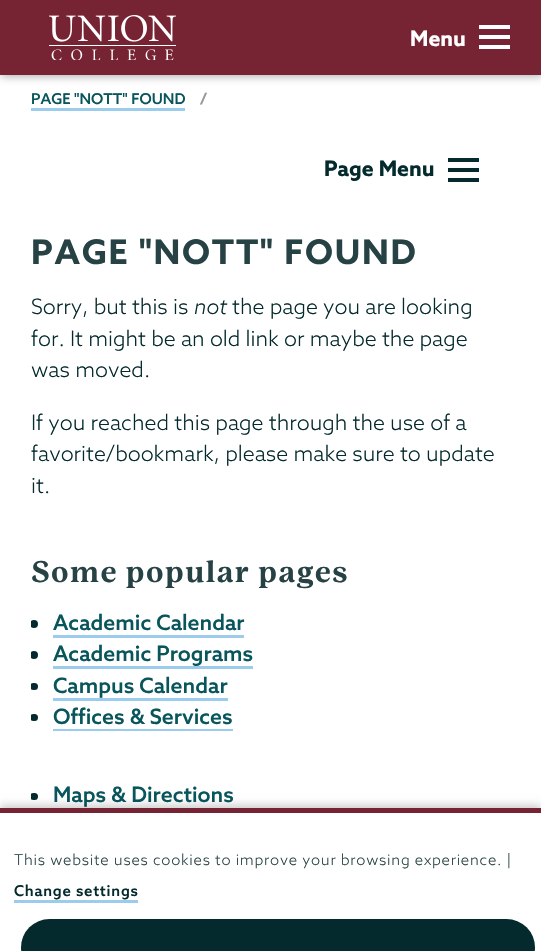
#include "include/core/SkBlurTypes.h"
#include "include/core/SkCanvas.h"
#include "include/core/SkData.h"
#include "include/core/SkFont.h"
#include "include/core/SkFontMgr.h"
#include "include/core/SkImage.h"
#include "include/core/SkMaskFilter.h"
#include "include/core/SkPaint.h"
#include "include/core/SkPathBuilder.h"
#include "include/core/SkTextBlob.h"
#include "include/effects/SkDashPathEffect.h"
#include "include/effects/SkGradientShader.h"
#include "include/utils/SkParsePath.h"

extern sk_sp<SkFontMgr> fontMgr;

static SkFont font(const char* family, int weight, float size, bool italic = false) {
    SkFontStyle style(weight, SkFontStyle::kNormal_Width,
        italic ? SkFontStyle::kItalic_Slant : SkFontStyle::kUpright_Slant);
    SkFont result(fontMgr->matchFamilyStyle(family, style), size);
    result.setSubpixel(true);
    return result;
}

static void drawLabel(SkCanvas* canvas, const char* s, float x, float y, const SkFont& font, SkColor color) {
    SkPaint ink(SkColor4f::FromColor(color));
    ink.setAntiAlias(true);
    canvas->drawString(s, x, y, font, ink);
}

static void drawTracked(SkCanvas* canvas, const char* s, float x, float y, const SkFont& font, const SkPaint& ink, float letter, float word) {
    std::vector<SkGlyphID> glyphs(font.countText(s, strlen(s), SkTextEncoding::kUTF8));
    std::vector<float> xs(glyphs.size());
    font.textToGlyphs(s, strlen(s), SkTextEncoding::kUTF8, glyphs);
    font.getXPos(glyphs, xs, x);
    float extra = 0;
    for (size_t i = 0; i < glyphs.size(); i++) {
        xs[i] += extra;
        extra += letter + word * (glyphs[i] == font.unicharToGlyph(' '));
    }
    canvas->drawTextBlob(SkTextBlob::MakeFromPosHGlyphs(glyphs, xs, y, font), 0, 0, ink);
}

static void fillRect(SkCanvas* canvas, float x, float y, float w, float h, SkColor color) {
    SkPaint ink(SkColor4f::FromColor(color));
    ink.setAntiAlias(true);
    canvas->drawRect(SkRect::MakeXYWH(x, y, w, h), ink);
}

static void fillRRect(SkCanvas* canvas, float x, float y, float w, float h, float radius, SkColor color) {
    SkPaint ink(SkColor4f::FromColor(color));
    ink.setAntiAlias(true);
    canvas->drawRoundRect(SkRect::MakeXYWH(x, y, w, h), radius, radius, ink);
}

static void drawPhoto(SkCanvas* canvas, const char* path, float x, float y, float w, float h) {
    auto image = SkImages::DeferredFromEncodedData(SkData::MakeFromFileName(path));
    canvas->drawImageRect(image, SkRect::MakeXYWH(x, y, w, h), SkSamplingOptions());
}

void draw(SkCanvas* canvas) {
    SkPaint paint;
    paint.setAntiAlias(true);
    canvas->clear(0xFFFFFFFF);
    paint.setColor(0x66222222);
    paint.setMaskFilter(SkMaskFilter::MakeBlur(kNormal_SkBlurStyle, 4.5f));
    canvas->drawRect(SkRect::MakeXYWH(1, 1, 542, 75), paint);
    paint.setMaskFilter(nullptr);
    fillRect(canvas, 0, 0, 541, 75, 0xFF762334);
    drawPhoto(canvas, "assets/img1.png", 49, 15, 127, 45);
    SkFont font1 = font("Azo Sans", 700, 21.25f);
    drawLabel(canvas, "Menu", 410, 46, font1, 0xFFFFFFFF);
    fillRect(canvas, 479, 35, 31, 4, 0xFFFFFFFF);
    fillRect(canvas, 479, 25, 31, 4, 0xFFFFFFFF);
    fillRect(canvas, 479, 45, 31, 4, 0xFFFFFFFF);
    SkFont font2 = font("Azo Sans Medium", 500, 14.9f);
    drawLabel(canvas, "PAGE \"NOTT\" FOUND", 31, 104, font2, 0xFF08565C);
    fillRect(canvas, 31, 108, 154, 3, 0xFF9BCCEB);
    SkFont font3 = font("Azo Sans", 700, 14.9f);
    drawLabel(canvas, "/", 200, 104, font3, 0xFF999898);
    drawLabel(canvas, "Page Menu", 324, 176, font1, 0xFF042A2D);
    fillRect(canvas, 448, 168, 31, 4, 0xFF042A2D);
    fillRect(canvas, 448, 158, 31, 4, 0xFF042A2D);
    fillRect(canvas, 448, 178, 31, 4, 0xFF042A2D);
    SkFont font4 = font("Azo Sans", 700, 34);
    paint.setColor(0xFF274244);
    drawTracked(canvas, "PAGE \"NOTT\" FOUND", 31, 264, font4, paint, 1.75f, 0);
    SkFont font5 = font("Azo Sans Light", 300, 21.25f);
    drawLabel(canvas, "Sorry, but this is", 31, 314, font5, 0xFF042A2D);
    SkFont font6 = font("Azo Sans Light", 300, 21.25f, true);
    drawLabel(canvas, "not", 194, 314, font6, 0xFF042A2D);
    drawLabel(canvas, "the page you are looking", 232, 314, font5, 0xFF042A2D);
    drawLabel(canvas, "for. It might be an old link or maybe the page", 31, 346, font5, 0xFF042A2D);
    drawLabel(canvas, "was moved.", 31, 377, font5, 0xFF042A2D);
    drawLabel(canvas, "If you reached this page through the use of a", 31, 430, font5, 0xFF042A2D);
    drawLabel(canvas, "favorite/bookmark, please make sure to update", 31, 461, font5, 0xFF042A2D);
    drawLabel(canvas, "it.", 31, 493, font5, 0xFF042A2D);
    SkFont font7 = font("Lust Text", 700, 29.75f);
    drawTracked(canvas, "Some popular pages", 31, 582, font7, paint, 1.5f, 0);
    canvas->save();
    canvas->clipRect(SkRect::MakeXYWH(31, 606, 479, 125));
    paint.setColor(0xFF042A2D);
    canvas->drawCircle(34, 624, 4, paint);
    canvas->restore();
    SkFont font8 = font("Azo Sans Medium", 500, 21.25f);
    drawLabel(canvas, "Academic Calendar", 53, 630, font8, 0xFF08565C);
    fillRect(canvas, 53, 635, 191, 3, 0xFF9BCCEB);
    canvas->save();
    canvas->clipRect(SkRect::MakeXYWH(31, 606, 479, 125));
    canvas->drawCircle(34, 655, 4, paint);
    canvas->restore();
    drawLabel(canvas, "Academic Programs", 53, 661, font8, 0xFF08565C);
    fillRect(canvas, 53, 666, 200, 3, 0xFF9BCCEB);
    canvas->save();
    canvas->clipRect(SkRect::MakeXYWH(31, 606, 479, 125));
    fillRRect(canvas, 30, 683, 8, 7, 3.5f, 0xFF042A2D);
    canvas->restore();
    drawLabel(canvas, "Campus Calendar", 53, 693, font8, 0xFF08565C);
    fillRect(canvas, 53, 698, 175, 3, 0xFF9BCCEB);
    canvas->save();
    canvas->clipRect(SkRect::MakeXYWH(31, 606, 479, 125));
    fillRRect(canvas, 30, 714, 8, 7, 3.5f, 0xFF042A2D);
    canvas->restore();
    drawLabel(canvas, "Offices & Services", 53, 724, font8, 0xFF08565C);
    fillRect(canvas, 53, 729, 180, 2, 0xFF9BCCEB);
    canvas->save();
    canvas->clipRect(SkRect::MakeXYWH(31, 779, 479, 156));
    fillRRect(canvas, 30, 793, 8, 7, 3.5f, 0xFF042A2D);
    canvas->restore();
    drawLabel(canvas, "Maps & Directions", 53, 802, font8, 0xFF08565C);
    paint.setColor(0x33000000);
    paint.setMaskFilter(SkMaskFilter::MakeBlur(kNormal_SkBlurStyle, 4));
    canvas->drawRect(SkRect::MakeXYWH(0, 805, 541, 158), paint);
    paint.setMaskFilter(nullptr);
    fillRect(canvas, 0, 813, 541, 138, 0xFFFFFFFF);
    fillRect(canvas, 0, 808, 541, 5, 0xFF762334);
    SkFont font9 = font("Azo Sans Light", 300, 14.9f);
    paint.setColor(0xFF274244);
    drawTracked(canvas, "This website uses cookies to improve your browsing experience. |", 14, 865, font9, paint, 0.75f, 0);
    paint.setColor(0xFF042A2D);
    drawTracked(canvas, "Change settings", 14, 896, font2, paint, 0.75f, 0);
    fillRect(canvas, 14, 900, 124, 3, 0xFF9BCCEB);
    fillRRect(canvas, 21, 919, 514, 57, 28.5f, 0xFF042A2D);
}
